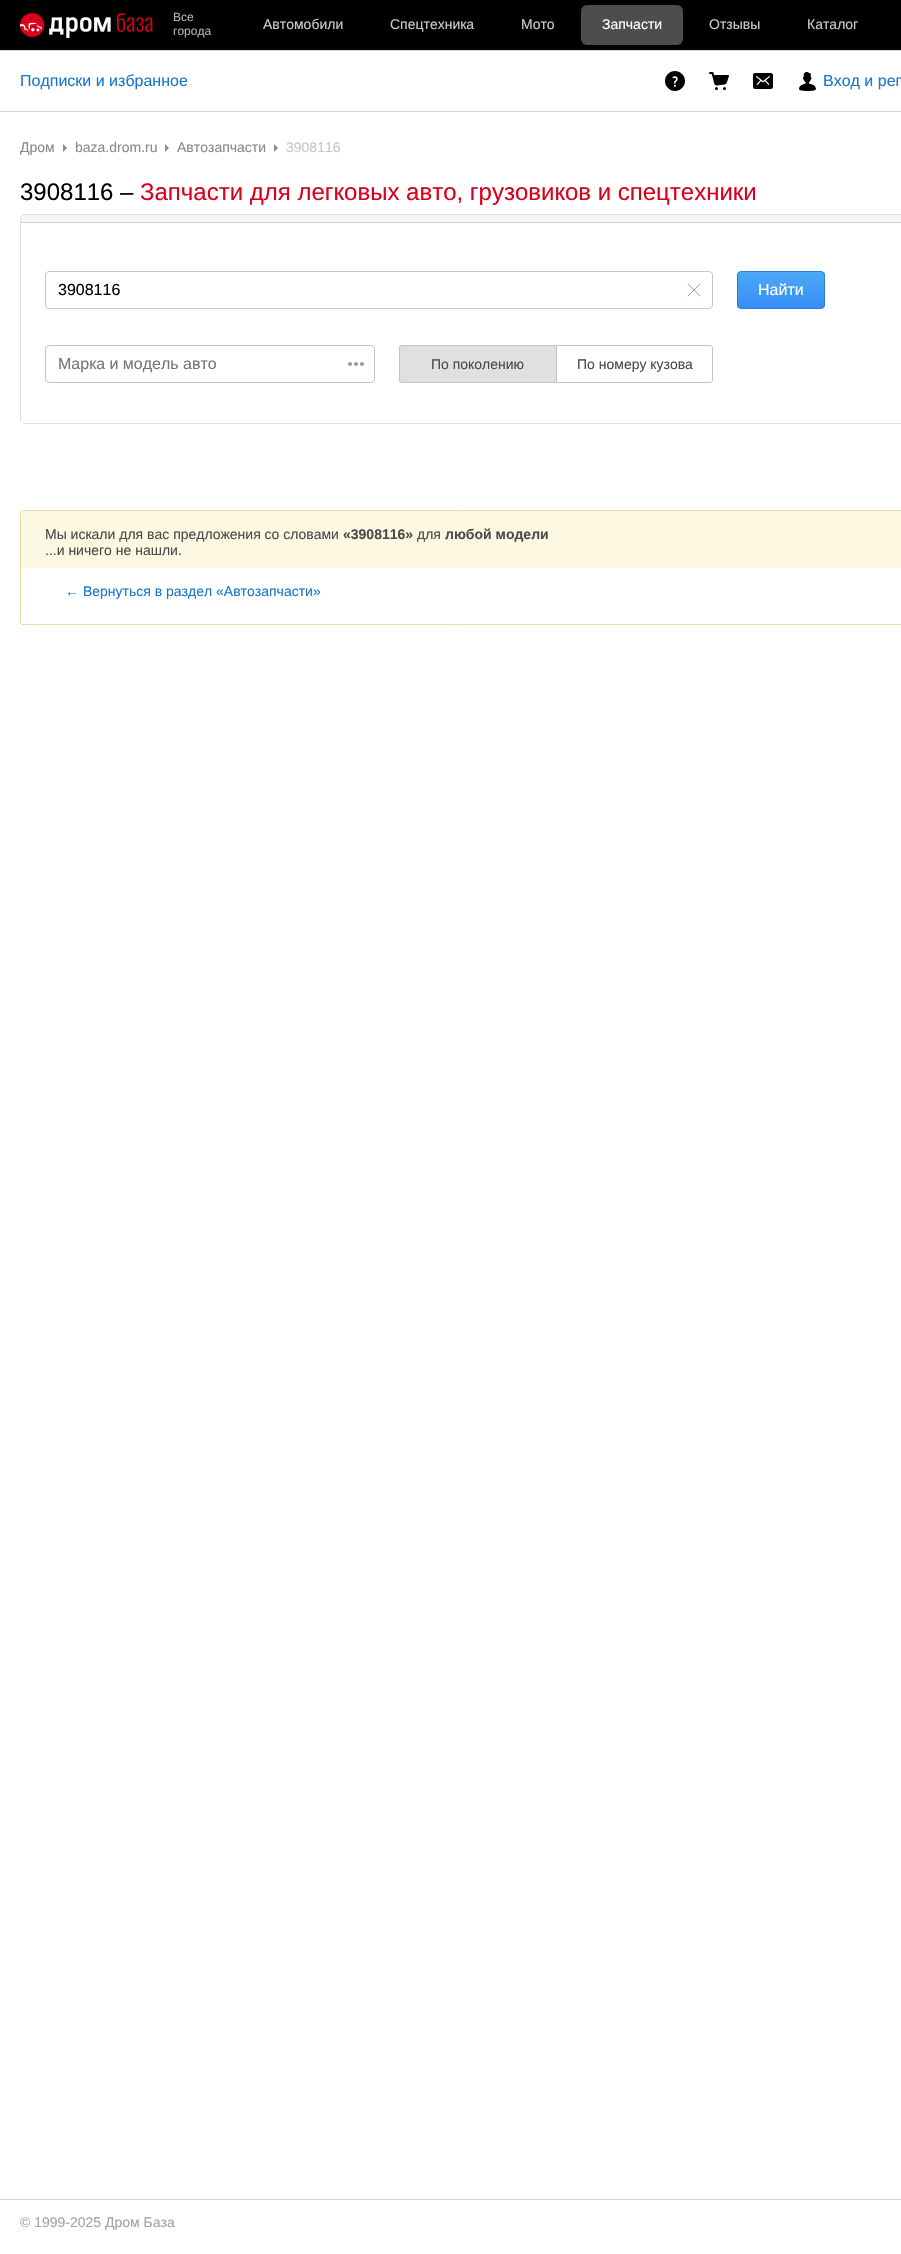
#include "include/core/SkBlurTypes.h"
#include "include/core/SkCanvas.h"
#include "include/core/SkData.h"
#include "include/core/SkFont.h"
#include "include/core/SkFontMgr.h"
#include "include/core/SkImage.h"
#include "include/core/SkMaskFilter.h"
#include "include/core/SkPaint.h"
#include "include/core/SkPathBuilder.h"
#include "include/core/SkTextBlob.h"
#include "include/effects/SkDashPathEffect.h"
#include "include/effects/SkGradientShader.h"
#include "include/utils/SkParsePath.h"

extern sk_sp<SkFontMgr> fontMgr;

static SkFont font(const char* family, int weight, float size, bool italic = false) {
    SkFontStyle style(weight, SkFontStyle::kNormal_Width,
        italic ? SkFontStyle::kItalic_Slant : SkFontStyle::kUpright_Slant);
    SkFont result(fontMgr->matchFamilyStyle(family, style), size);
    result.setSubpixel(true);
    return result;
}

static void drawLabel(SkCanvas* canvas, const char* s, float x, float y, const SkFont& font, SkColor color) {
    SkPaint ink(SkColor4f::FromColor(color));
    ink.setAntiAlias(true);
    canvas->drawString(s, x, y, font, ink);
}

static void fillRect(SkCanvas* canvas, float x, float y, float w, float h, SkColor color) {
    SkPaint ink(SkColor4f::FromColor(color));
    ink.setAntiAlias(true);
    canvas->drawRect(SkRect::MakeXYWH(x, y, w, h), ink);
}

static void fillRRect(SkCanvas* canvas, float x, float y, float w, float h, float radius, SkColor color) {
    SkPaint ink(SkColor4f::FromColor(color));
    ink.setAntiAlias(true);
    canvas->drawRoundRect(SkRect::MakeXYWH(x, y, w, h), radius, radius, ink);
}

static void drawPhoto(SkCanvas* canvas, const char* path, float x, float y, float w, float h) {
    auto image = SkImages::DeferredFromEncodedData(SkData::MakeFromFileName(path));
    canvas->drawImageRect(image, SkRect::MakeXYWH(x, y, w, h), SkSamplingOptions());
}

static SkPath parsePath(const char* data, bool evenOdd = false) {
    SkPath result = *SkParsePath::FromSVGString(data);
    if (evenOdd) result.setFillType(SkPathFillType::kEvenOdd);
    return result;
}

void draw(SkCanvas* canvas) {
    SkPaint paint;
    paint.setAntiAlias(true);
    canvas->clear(0xFFFFFFFF);
    fillRect(canvas, 0, 0, 901, 50, 0xFF000000);
    drawPhoto(canvas, "assets/img1.png", 20, 13, 133, 25);
    SkFont font1 = font("Liberation Sans", 400, 12);
    drawLabel(canvas, "Все", 173, 21, font1, 0xFFB3B3B3);
    drawLabel(canvas, "города", 173, 35, font1, 0xFFB3B3B3);
    SkFont font2 = font("Liberation Sans", 400, 14);
    drawLabel(canvas, "Автомобили", 263, 29, font2, 0xFFCCCCCC);
    drawLabel(canvas, "Спецтехника", 390, 29, font2, 0xFFCCCCCC);
    drawLabel(canvas, "Мото", 521, 29, font2, 0xFFCCCCCC);
    drawLabel(canvas, "Запчасти", 602, 29, font2, 0xFFFFFFFF);
    fillRRect(canvas, 581, 5, 102, 40, 6, 0x4DFFFFFF);
    drawLabel(canvas, "Отзывы", 709, 29, font2, 0xFFCCCCCC);
    drawLabel(canvas, "Каталог", 807, 29, font2, 0xFFCCCCCC);
    fillRect(canvas, 0, 50, 901, 1, 0xFFD6DADC);
    fillRect(canvas, 0, 111, 901, 1, 0xFFD5D5D5);
    SkFont font3 = font("Liberation Sans", 400, 16);
    drawLabel(canvas, "Подписки и избранное", 20, 86, font3, 0xFF1A76CB);
    drawPhoto(canvas, "assets/img2.png", 665, 71, 20, 20);
    drawPhoto(canvas, "assets/img3.png", 709, 72, 20, 18);
    drawPhoto(canvas, "assets/img4.png", 753, 73, 20, 16);
    drawPhoto(canvas, "assets/img5.png", 799, 72, 17, 19);
    drawLabel(canvas, "Вход и рег", 823, 86, font3, 0xFF1A76CB);
    drawLabel(canvas, "Дром", 20, 152, font2, 0xFF8A8A8A);
    paint.setColor(0xFF8A8A8A);
    canvas->drawPath(parsePath("M63 152V144L67 148Z"), paint);
    drawLabel(canvas, "baza.drom.ru", 75, 152, font2, 0xFF8A8A8A);
    canvas->drawPath(parsePath("M165 152V144L169 148Z"), paint);
    drawLabel(canvas, "Автозапчасти", 177, 152, font2, 0xFF8A8A8A);
    canvas->drawPath(parsePath("M274 152V144L278 148Z"), paint);
    drawLabel(canvas, "3908116", 286, 152, font2, 0xFFC6C6C6);
    SkFont font4 = font("Liberation Sans", 400, 24);
    drawLabel(canvas, "3908116 –", 20, 200, font4, 0xFF000000);
    drawLabel(canvas, "Запчасти для легковых авто, грузовиков и спецтехники", 140, 200, font4, 0xFFDB001B);
    paint.setColor(0xFFF7F7F7);
    canvas->drawRoundRect(SkRect::MakeXYWH(20.5f, 214.5f, 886, 209), 4.5f, 4.5f, paint);
    paint.setStroke(true);
    paint.setStrokeWidth(1);
    paint.setColor(0xFFDDDDDD);
    canvas->drawRoundRect(SkRect::MakeXYWH(20.5f, 214.5f, 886, 209), 4.5f, 4.5f, paint);
    fillRect(canvas, 21, 223, 880, 200, 0xFFFFFFFF);
    fillRect(canvas, 21, 222, 880, 1, 0xFFCFCFCF);
    paint.setColor(0xFFC6C6C6);
    canvas->drawRoundRect(SkRect::MakeXYWH(45.5f, 271.5f, 667, 37), 3.5f, 3.5f, paint);
    drawLabel(canvas, "3908116", 58, 295, font3, 0xFF000000);
    paint.setStrokeCap(SkPaint::kRound_Cap);
    paint.setColor(0xFF999999);
    canvas->drawPath(parsePath("M688 284L700 296M700 284L688 296"), paint);
    canvas->save();
    canvas->clipPath(parsePath("M741 271H821C823 271 825 273 825 275V305C825 307 823 309 821 309H741C739 309 737 307 737 305V275C737 273 739 271 741 271Z"), true);
    paint.setStroke(false);
    {
        const SkColor colors[] = {0xFF4BA9F7, 0xFF388DF5};
        const float stops[] = {0, 1};
        const SkPoint ends[] = {{781, 272}, {781, 308}};
        paint.setShader(SkGradientShader::MakeLinear(ends, colors, stops, 2, SkTileMode::kClamp));
        paint.setAlpha(255);
    }
    canvas->drawRect(SkRect::MakeXYWH(737, 272, 88, 36), paint);
    canvas->restore();
    paint.setStroke(true);
    paint.setStrokeCap(SkPaint::kButt_Cap);
    paint.setShader(nullptr);
    paint.setColor(0xFF2C7DD2);
    canvas->drawRoundRect(SkRect::MakeXYWH(737.5f, 271.5f, 87, 37), 3.5f, 3.5f, paint);
    drawLabel(canvas, "Найти", 758, 295, font3, 0xFFFFFFFF);
    paint.setColor(0xFFC6C6C6);
    canvas->drawRoundRect(SkRect::MakeXYWH(45.5f, 345.5f, 329, 37), 3.5f, 3.5f, paint);
    drawLabel(canvas, "Марка и модель авто", 58, 369, font3, 0xFF757575);
    paint.setStroke(false);
    paint.setColor(0xFF999999);
    canvas->drawCircle(350, 364, 2, paint);
    canvas->drawCircle(356, 364, 2, paint);
    canvas->drawCircle(362, 364, 2, paint);
    paint.setColor(0xFFE0E0E0);
    canvas->drawPath(parsePath("M402 345H556V383H402C400.5 383 399 381.5 399 380V348C399 346.5 400.5 345 402 345Z"), paint);
    paint.setColor(0xFFC4C4C4);
    canvas->drawPath(parsePath("M402 345H556V383H402C400 383 399 382 399 380V348C399 346 400 345 402 345ZM402 346H556V382H402C401 382 400 381 400 380V348C400 347 401 346 402 346Z", true), paint);
    drawLabel(canvas, "По поколению", 431, 369, font2, 0xFF4A4A4A);
    paint.setStroke(true);
    canvas->drawPath(parsePath("M556.5 345.5H710C711.5 345.5 712.5 346.5 712.5 348V380C712.5 381.5 711.5 382.5 710 382.5H556.5Z"), paint);
    drawLabel(canvas, "По номеру кузова", 577, 369, font2, 0xFF4A4A4A);
    paint.setColor(0xFFF0D8A9);
    canvas->drawRoundRect(SkRect::MakeXYWH(20.5f, 510.5f, 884, 114), 2.5f, 2.5f, paint);
    paint.setStroke(false);
    paint.setColor(0xFFFCF8E2);
    canvas->drawPath(parsePath("M26 511H901C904 511 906 513 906 516V568H21V516C21 513 23 511 26 511Z"), paint);
    drawLabel(canvas, "Мы искали для вас предложения со словами", 45, 539, font2, 0xFF4A4A4A);
    SkFont font5 = font("Liberation Sans", 700, 14);
    drawLabel(canvas, "«3908116»", 343, 539, font5, 0xFF4A4A4A);
    drawLabel(canvas, "для", 417, 539, font2, 0xFF4A4A4A);
    drawLabel(canvas, "любой модели", 445, 539, font5, 0xFF4A4A4A);
    drawLabel(canvas, "...и ничего не нашли.", 45, 555, font2, 0xFF4A4A4A);
    drawLabel(canvas, "← Вернуться в раздел «Автозапчасти»", 65, 596, font2, 0xFF1A76CB);
    fillRect(canvas, 0, 2199, 901, 1, 0xFFD5D5D5);
    drawLabel(canvas, "© 1999-2025 Дром База", 20, 2227, font2, 0xFFA2A2A2);
}
